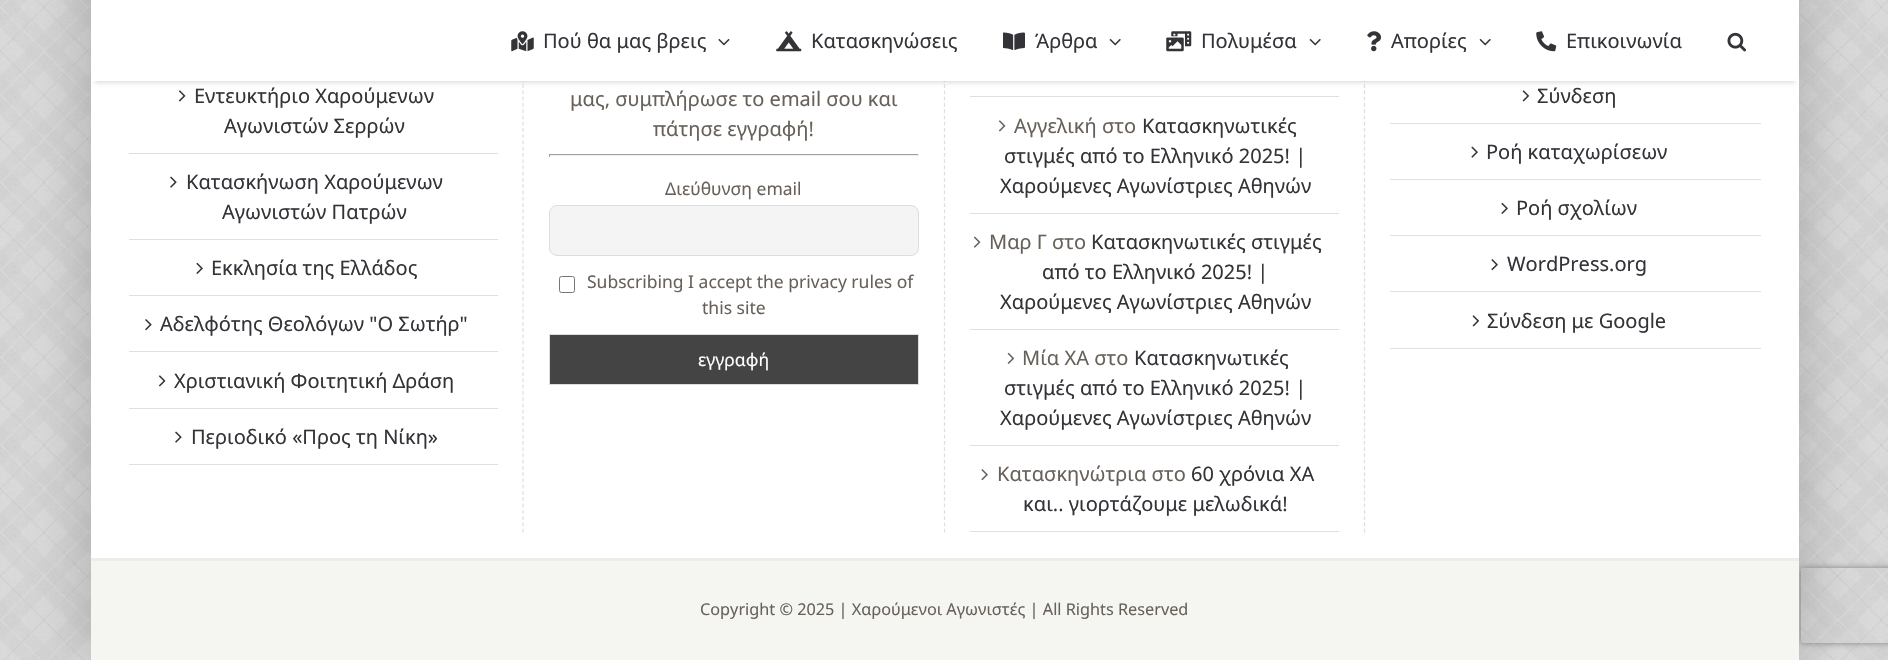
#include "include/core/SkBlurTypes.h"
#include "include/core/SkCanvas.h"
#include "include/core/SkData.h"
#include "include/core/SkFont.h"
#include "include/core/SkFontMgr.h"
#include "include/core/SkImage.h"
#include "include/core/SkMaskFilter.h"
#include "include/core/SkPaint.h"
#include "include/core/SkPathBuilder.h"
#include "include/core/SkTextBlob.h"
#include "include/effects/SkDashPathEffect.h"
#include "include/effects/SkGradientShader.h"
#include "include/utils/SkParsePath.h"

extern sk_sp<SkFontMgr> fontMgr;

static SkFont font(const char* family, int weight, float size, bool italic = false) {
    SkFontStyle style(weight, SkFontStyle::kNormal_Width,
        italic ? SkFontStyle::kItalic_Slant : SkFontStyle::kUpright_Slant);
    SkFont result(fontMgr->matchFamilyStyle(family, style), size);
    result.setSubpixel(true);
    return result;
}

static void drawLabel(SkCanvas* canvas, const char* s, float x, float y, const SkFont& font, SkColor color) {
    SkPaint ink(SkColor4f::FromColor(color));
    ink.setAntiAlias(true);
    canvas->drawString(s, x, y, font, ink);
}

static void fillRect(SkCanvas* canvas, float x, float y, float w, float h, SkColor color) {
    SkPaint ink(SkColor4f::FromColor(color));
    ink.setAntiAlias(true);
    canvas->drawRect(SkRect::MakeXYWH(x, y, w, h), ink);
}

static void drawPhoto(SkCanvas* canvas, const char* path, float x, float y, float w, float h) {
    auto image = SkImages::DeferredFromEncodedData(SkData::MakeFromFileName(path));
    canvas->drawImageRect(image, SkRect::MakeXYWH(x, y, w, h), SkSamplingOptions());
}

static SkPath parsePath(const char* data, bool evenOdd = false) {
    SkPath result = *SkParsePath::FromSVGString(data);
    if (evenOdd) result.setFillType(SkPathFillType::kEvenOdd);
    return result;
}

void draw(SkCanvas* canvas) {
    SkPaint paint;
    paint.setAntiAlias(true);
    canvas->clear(0xFFFFFFFF);
    drawPhoto(canvas, "assets/img1.png", 0, 0, 1888, 660);
    paint.setColor(0x38000000);
    paint.setMaskFilter(SkMaskFilter::MakeBlur(kNormal_SkBlurStyle, 31));
    canvas->drawRect(SkRect::MakeXYWH(90, -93, 1710, 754), paint);
    paint.setMaskFilter(nullptr);
    fillRect(canvas, 91, 81, 1708, 477, 0xFFFFFFFF);
    paint.setStroke(true);
    paint.setStrokeWidth(1.2f);
    paint.setColor(0xFFE0DEDE);
    paint.setPathEffect(SkDashPathEffect::Make({{3.75f, 2.51f}}, 0));
    canvas->drawPath(parsePath("M523-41V532.5"), paint);
    paint.setPathEffect(nullptr);
    paint.setPathEffect(SkDashPathEffect::Make({{3.75f, 2.51f}}, 0));
    canvas->drawPath(parsePath("M944.5-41V532.5"), paint);
    paint.setPathEffect(nullptr);
    paint.setPathEffect(SkDashPathEffect::Make({{3.75f, 2.51f}}, 0));
    canvas->drawPath(parsePath("M1364.5-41V532.5"), paint);
    paint.setPathEffect(nullptr);
    paint.setStroke(false);
    paint.setColor(0x1F000000);
    paint.setMaskFilter(SkMaskFilter::MakeBlur(kNormal_SkBlurStyle, 2));
    canvas->drawRect(SkRect::MakeXYWH(95, 9, 1700, 74), paint);
    paint.setMaskFilter(nullptr);
    fillRect(canvas, 91, 0, 1708, 81, 0xFFFFFFFF);
    drawPhoto(canvas, "assets/img2.png", 511, 31, 23, 21);
    SkFont font1 = font("Noto Sans", 400, 20);
    drawLabel(canvas, "Πού θα μας βρεις", 543, 48, font1, 0xFF333338);
    drawPhoto(canvas, "assets/img3.png", 718, 38, 12, 8);
    drawPhoto(canvas, "assets/img4.png", 776, 31, 26, 21);
    drawLabel(canvas, "Κατασκηνώσεις", 811, 48, font1, 0xFF333338);
    drawPhoto(canvas, "assets/img5.png", 1003, 32, 22, 18);
    drawLabel(canvas, "Άρθρα", 1035, 48, font1, 0xFF333338);
    drawPhoto(canvas, "assets/img6.png", 1109, 38, 12, 8);
    drawPhoto(canvas, "assets/img7.png", 1166, 31, 26, 21);
    drawLabel(canvas, "Πολυμέσα", 1201, 48, font1, 0xFF333338);
    drawPhoto(canvas, "assets/img6.png", 1309, 38, 12, 8);
    drawPhoto(canvas, "assets/img8.png", 1367, 31, 14, 21);
    drawLabel(canvas, "Απορίες", 1391, 48, font1, 0xFF333338);
    drawPhoto(canvas, "assets/img6.png", 1479, 38, 12, 8);
    drawPhoto(canvas, "assets/img9.png", 1536, 31, 21, 21);
    drawLabel(canvas, "Επικοινωνία", 1566, 48, font1, 0xFF333338);
    drawPhoto(canvas, "assets/img10.png", 1727, 32, 19, 20);
    fillRect(canvas, 129, 153, 369, 1, 0xFFE0DEDE);
    drawPhoto(canvas, "assets/img11.png", 178, 90, 8, 12);
    drawLabel(canvas, "Εντευκτήριο Χαρούμενων", 194, 103, font1, 0xFF333338);
    drawLabel(canvas, "Αγωνιστών Σερρών", 224, 133, font1, 0xFF333338);
    fillRect(canvas, 129, 239, 369, 1, 0xFFE0DEDE);
    drawPhoto(canvas, "assets/img12.png", 170, 176, 7, 12);
    drawLabel(canvas, "Κατασκήνωση Χαρούμενων", 186, 189, font1, 0xFF333338);
    drawLabel(canvas, "Αγωνιστών Πατρών", 222, 219, font1, 0xFF333338);
    fillRect(canvas, 129, 295, 369, 1, 0xFFE0DEDE);
    drawPhoto(canvas, "assets/img13.png", 196, 262, 7, 12);
    drawLabel(canvas, "Εκκλησία της Ελλάδος", 211, 275, font1, 0xFF333338);
    fillRect(canvas, 129, 351, 369, 1, 0xFFE0DEDE);
    drawPhoto(canvas, "assets/img14.png", 145, 319, 7, 12);
    drawLabel(canvas, "Αδελφότης Θεολόγων \"Ο Σωτήρ\"", 160, 331, font1, 0xFF333338);
    fillRect(canvas, 129, 408, 369, 1, 0xFFE0DEDE);
    drawPhoto(canvas, "assets/img11.png", 158, 375, 8, 12);
    drawLabel(canvas, "Χριστιανική Φοιτητική Δράση", 174, 388, font1, 0xFF333338);
    fillRect(canvas, 129, 464, 369, 1, 0xFFE0DEDE);
    drawPhoto(canvas, "assets/img12.png", 175, 431, 7, 12);
    drawLabel(canvas, "Περιοδικό «Προς τη Νίκη»", 191, 444, font1, 0xFF333338);
    drawLabel(canvas, "μας, συμπλήρωσε το email σου και", 570, 106, font1, 0xFF67615A);
    drawLabel(canvas, "πάτησε εγγραφή!", 653, 136, font1, 0xFF67615A);
    fillRect(canvas, 549, 154, 370, 1, 0xFF9F9F9F);
    fillRect(canvas, 918, 154, 1, 3, 0xFFEEEEEE);
    fillRect(canvas, 549, 155, 370, 1, 0xFFEEEEEE);
    fillRect(canvas, 549, 154, 1, 3, 0xFF9F9F9F);
    SkFont font2 = font("Noto Sans", 400, 17.5f);
    drawLabel(canvas, "Διεύθυνση email", 665, 195, font2, 0xFF67615A);
    paint.setColor(0xFFF4F4F4);
    canvas->drawRoundRect(SkRect::MakeXYWH(549.5f, 205.5f, 369, 50), 7.5f, 7.5f, paint);
    paint.setStroke(true);
    paint.setStrokeWidth(1);
    paint.setColor(0xFFDDDDDD);
    canvas->drawRoundRect(SkRect::MakeXYWH(549.5f, 205.5f, 369, 50), 7.5f, 7.5f, paint);
    paint.setColor(0xFF767676);
    canvas->drawRoundRect(SkRect::MakeXYWH(559.5f, 276.5f, 15, 16), 2, 2, paint);
    drawLabel(canvas, "Subscribing I accept the privacy rules of", 587, 288, font2, 0xFF67615A);
    drawLabel(canvas, "this site", 702, 314, font2, 0xFF67615A);
    paint.setStroke(false);
    paint.setColor(0xFF444444);
    canvas->drawRect(SkRect::MakeXYWH(549.5f, 334.5f, 369, 50), paint);
    paint.setStroke(true);
    paint.setColor(0xFFDDDDDD);
    canvas->drawRect(SkRect::MakeXYWH(549.5f, 334.5f, 369, 50), paint);
    drawLabel(canvas, "εγγραφή", 698, 366, font2, 0xFFFFFFFF);
    fillRect(canvas, 970, 96, 369, 1, 0xFFE0DEDE);
    fillRect(canvas, 970, 213, 369, 1, 0xFFE0DEDE);
    drawPhoto(canvas, "assets/img15.png", 998, 120, 8, 12);
    drawLabel(canvas, "Αγγελική στο", 1014, 133, font1, 0xFF67615A);
    drawLabel(canvas, "Κατασκηνωτικές", 1142, 133, font1, 0xFF333338);
    drawLabel(canvas, "στιγμές από το Ελληνικό 2025! |", 1004, 163, font1, 0xFF333338);
    drawLabel(canvas, "Χαρούμενες Αγωνίστριες Αθηνών", 1000, 193, font1, 0xFF333338);
    fillRect(canvas, 970, 329, 369, 1, 0xFFE0DEDE);
    drawPhoto(canvas, "assets/img16.png", 973, 236, 8, 12);
    drawLabel(canvas, "Μαρ Γ στο", 989, 249, font1, 0xFF67615A);
    drawLabel(canvas, "Κατασκηνωτικές στιγμές", 1091, 249, font1, 0xFF333338);
    drawLabel(canvas, "από το Ελληνικό 2025! |", 1042, 279, font1, 0xFF333338);
    drawLabel(canvas, "Χαρούμενες Αγωνίστριες Αθηνών", 1000, 309, font1, 0xFF333338);
    fillRect(canvas, 970, 445, 369, 1, 0xFFE0DEDE);
    drawPhoto(canvas, "assets/img17.png", 1007, 352, 8, 12);
    drawLabel(canvas, "Μία ΧΑ στο", 1022, 365, font1, 0xFF67615A);
    drawLabel(canvas, "Κατασκηνωτικές", 1134, 365, font1, 0xFF333338);
    drawLabel(canvas, "στιγμές από το Ελληνικό 2025! |", 1004, 395, font1, 0xFF333338);
    drawLabel(canvas, "Χαρούμενες Αγωνίστριες Αθηνών", 1000, 425, font1, 0xFF333338);
    fillRect(canvas, 970, 531, 369, 1, 0xFFE0DEDE);
    drawPhoto(canvas, "assets/img18.png", 981, 469, 7, 12);
    drawLabel(canvas, "Κατασκηνώτρια στο", 997, 481, font1, 0xFF67615A);
    drawLabel(canvas, "60 χρόνια ΧΑ", 1191, 481, font1, 0xFF333338);
    drawLabel(canvas, "και.. γιορτάζουμε μελωδικά!", 1023, 511, font1, 0xFF333338);
    fillRect(canvas, 1390, 123, 371, 1, 0xFFE0DEDE);
    drawPhoto(canvas, "assets/img19.png", 1522, 90, 8, 12);
    drawLabel(canvas, "Σύνδεση", 1537, 103, font1, 0xFF333338);
    fillRect(canvas, 1390, 179, 371, 1, 0xFFE0DEDE);
    drawPhoto(canvas, "assets/img20.png", 1471, 146, 7, 12);
    drawLabel(canvas, "Ροή καταχωρίσεων", 1486, 159, font1, 0xFF333338);
    fillRect(canvas, 1390, 235, 371, 1, 0xFFE0DEDE);
    drawPhoto(canvas, "assets/img13.png", 1501, 202, 7, 12);
    drawLabel(canvas, "Ροή σχολίων", 1516, 215, font1, 0xFF333338);
    fillRect(canvas, 1390, 291, 371, 1, 0xFFE0DEDE);
    drawPhoto(canvas, "assets/img21.png", 1491, 259, 7, 12);
    drawLabel(canvas, "WordPress.org", 1507, 271, font1, 0xFF333338);
    fillRect(canvas, 1390, 348, 371, 1, 0xFFE0DEDE);
    drawPhoto(canvas, "assets/img19.png", 1472, 315, 8, 12);
    drawLabel(canvas, "Σύνδεση με Google", 1487, 328, font1, 0xFF333338);
    canvas->save();
    canvas->clipPath(parsePath("M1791 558H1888V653H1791ZM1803.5 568H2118.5C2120 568 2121 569 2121 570.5V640.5C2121 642 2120 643 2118.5 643H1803.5C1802 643 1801 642 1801 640.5V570.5C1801 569 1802 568 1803.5 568Z", true), true);
    paint.setStroke(false);
    paint.setColor(0xFF808080);
    paint.setMaskFilter(SkMaskFilter::MakeBlur(kNormal_SkBlurStyle, 3));
    canvas->drawRoundRect(SkRect::MakeXYWH(1801, 568, 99, 75), 2.5f, 2.5f, paint);
    paint.setMaskFilter(nullptr);
    canvas->restore();
    fillRect(canvas, 91, 561, 1708, 99, 0xFFF5F5F1);
    fillRect(canvas, 91, 558, 1708, 3, 0xFFEEEEE8);
    SkFont font3 = font("Noto Sans", 400, 16.25f);
    drawLabel(canvas, "Copyright © 2025 | Χαρούμενοι Αγωνιστές | All Rights Reserved", 700, 615, font3, 0xFF67615A);
}
